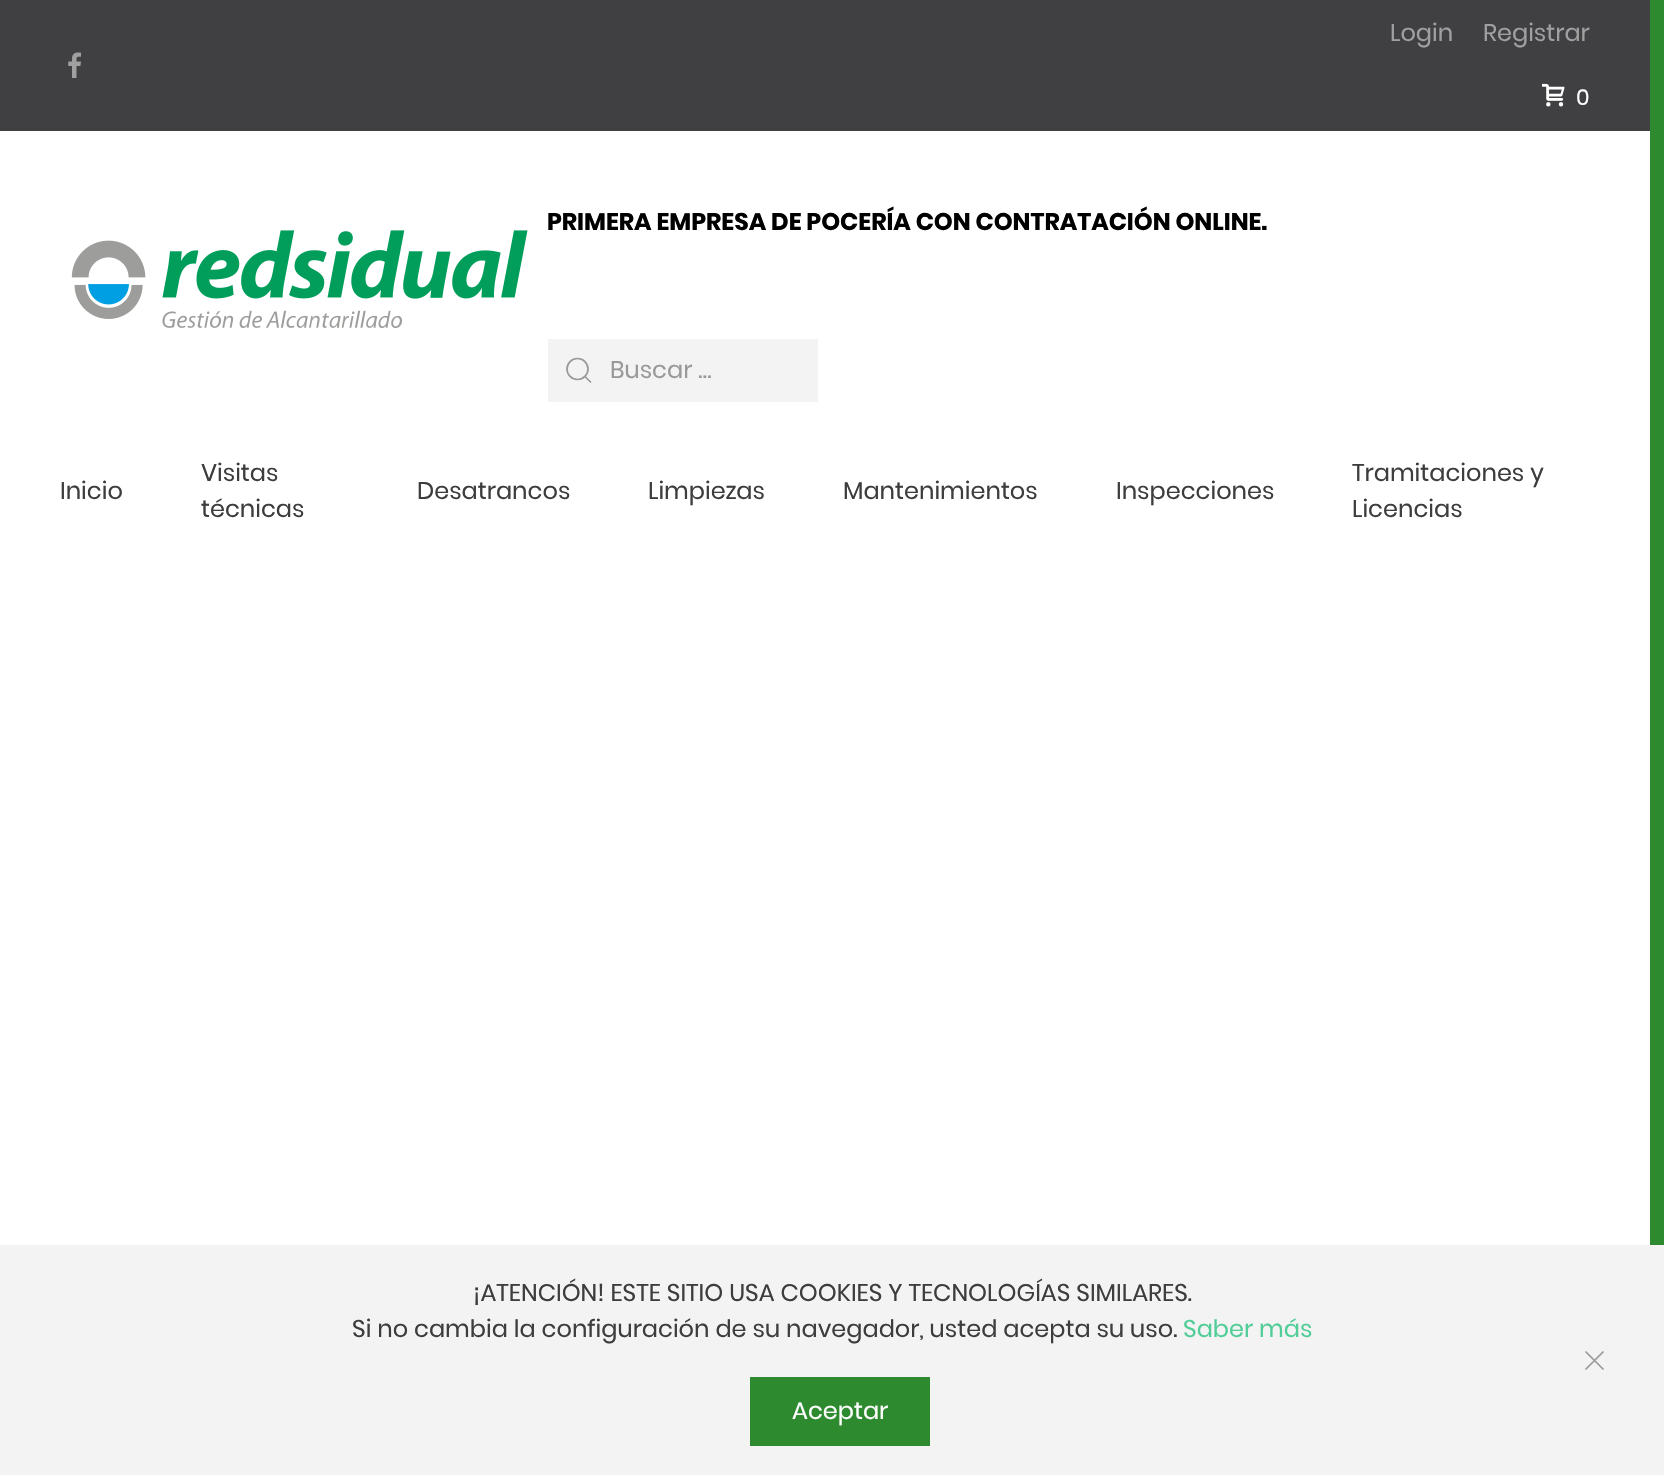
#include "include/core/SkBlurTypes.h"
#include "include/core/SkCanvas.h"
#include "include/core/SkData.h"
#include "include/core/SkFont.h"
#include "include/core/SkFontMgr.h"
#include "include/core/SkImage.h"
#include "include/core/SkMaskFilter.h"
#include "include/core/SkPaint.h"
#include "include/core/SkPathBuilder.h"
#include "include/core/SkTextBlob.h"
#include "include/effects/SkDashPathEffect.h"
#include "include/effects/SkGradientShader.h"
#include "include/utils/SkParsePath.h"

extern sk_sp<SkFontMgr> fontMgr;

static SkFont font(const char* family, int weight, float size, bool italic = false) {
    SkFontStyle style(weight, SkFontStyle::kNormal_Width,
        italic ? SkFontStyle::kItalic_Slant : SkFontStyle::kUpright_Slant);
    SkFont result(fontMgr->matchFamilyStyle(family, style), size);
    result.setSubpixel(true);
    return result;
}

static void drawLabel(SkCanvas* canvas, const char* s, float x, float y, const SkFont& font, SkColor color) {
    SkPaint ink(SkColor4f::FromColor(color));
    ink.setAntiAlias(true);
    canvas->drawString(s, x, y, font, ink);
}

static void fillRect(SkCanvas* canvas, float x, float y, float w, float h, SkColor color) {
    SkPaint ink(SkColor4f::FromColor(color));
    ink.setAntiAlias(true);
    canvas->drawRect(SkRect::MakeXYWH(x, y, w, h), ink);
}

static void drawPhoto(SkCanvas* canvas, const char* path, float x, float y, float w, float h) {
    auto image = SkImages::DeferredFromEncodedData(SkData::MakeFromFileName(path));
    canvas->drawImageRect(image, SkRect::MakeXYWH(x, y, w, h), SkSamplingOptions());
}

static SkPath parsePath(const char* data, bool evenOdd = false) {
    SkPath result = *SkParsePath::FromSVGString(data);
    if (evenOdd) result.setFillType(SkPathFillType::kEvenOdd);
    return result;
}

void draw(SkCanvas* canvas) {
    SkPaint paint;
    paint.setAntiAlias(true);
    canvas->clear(0xFFFFFFFF);
    fillRect(canvas, 1650, 0, 14, 1245, 0xFF2D8A2E);
    fillRect(canvas, 0, 0, 1650, 131, 0xFF404042);
    drawPhoto(canvas, "assets/img1.png", 68, 52, 13, 26);
    SkFont font1 = font("Poppins", 400, 24);
    drawLabel(canvas, "Login", 1390, 41, font1, 0xFFA0A0A1);
    drawLabel(canvas, "Registrar", 1483, 41, font1, 0xFFA0A0A1);
    drawPhoto(canvas, "assets/img2.png", 1542, 83, 23, 24);
    SkFont font2 = font("Poppins", 400, 22);
    drawLabel(canvas, "0", 1576, 105, font2, 0xFFFFFFFF);
    drawPhoto(canvas, "assets/img3.png", 71, 230, 457, 98);
    SkFont font3 = font("Poppins", 700, 24);
    drawLabel(canvas, "PRIMERA EMPRESA DE POCERÍA CON CONTRATACIÓN ONLINE.", 547, 230, font3, 0xFF000000);
    fillRect(canvas, 548, 339, 270, 63, 0xFFF3F3F3);
    paint.setStroke(true);
    paint.setStrokeWidth(1.7f);
    paint.setColor(0xFF999999);
    canvas->drawCircle(577.5f, 369, 10.5f, paint);
    canvas->drawPath(parsePath("M585 376.5L591 382.5Z"), paint);
    drawLabel(canvas, "Buscar …", 610, 378, font1, 0xFF999999);
    drawLabel(canvas, "Inicio", 60, 499, font1, 0xFF3D3D3D);
    drawLabel(canvas, "Visitas", 201, 481, font1, 0xFF3D3D3D);
    drawLabel(canvas, "técnicas", 201, 517, font1, 0xFF3D3D3D);
    drawLabel(canvas, "Desatrancos", 417, 499, font1, 0xFF3D3D3D);
    drawLabel(canvas, "Limpiezas", 648, 499, font1, 0xFF3D3D3D);
    drawLabel(canvas, "Mantenimientos", 843, 499, font1, 0xFF3D3D3D);
    drawLabel(canvas, "Inspecciones", 1116, 499, font1, 0xFF3D3D3D);
    drawLabel(canvas, "Tramitaciones y", 1352, 481, font1, 0xFF3D3D3D);
    drawLabel(canvas, "Licencias", 1352, 517, font1, 0xFF3D3D3D);
    fillRect(canvas, 0, 1245, 1664, 230, 0xFFF3F3F3);
    drawLabel(canvas, "¡ATENCIÓN! ESTE SITIO USA COOKIES Y TECNOLOGÍAS SIMILARES.", 473, 1301, font1, 0xFF3D3D3D);
    drawLabel(canvas, "Si no cambia la configuración de su navegador, usted acepta su uso.", 352, 1337, font1, 0xFF3D3D3D);
    drawLabel(canvas, "Saber más", 1183, 1337, font1, 0xFF51CD98);
    canvas->drawPath(parsePath("M1585.5 1351.5L1603.5 1369.5M1603.5 1351.5L1585.5 1369.5"), paint);
    fillRect(canvas, 750, 1377, 180, 69, 0xFF2D8A2E);
    drawLabel(canvas, "Aceptar", 792, 1419, font1, 0xFFFFFFFF);
}
